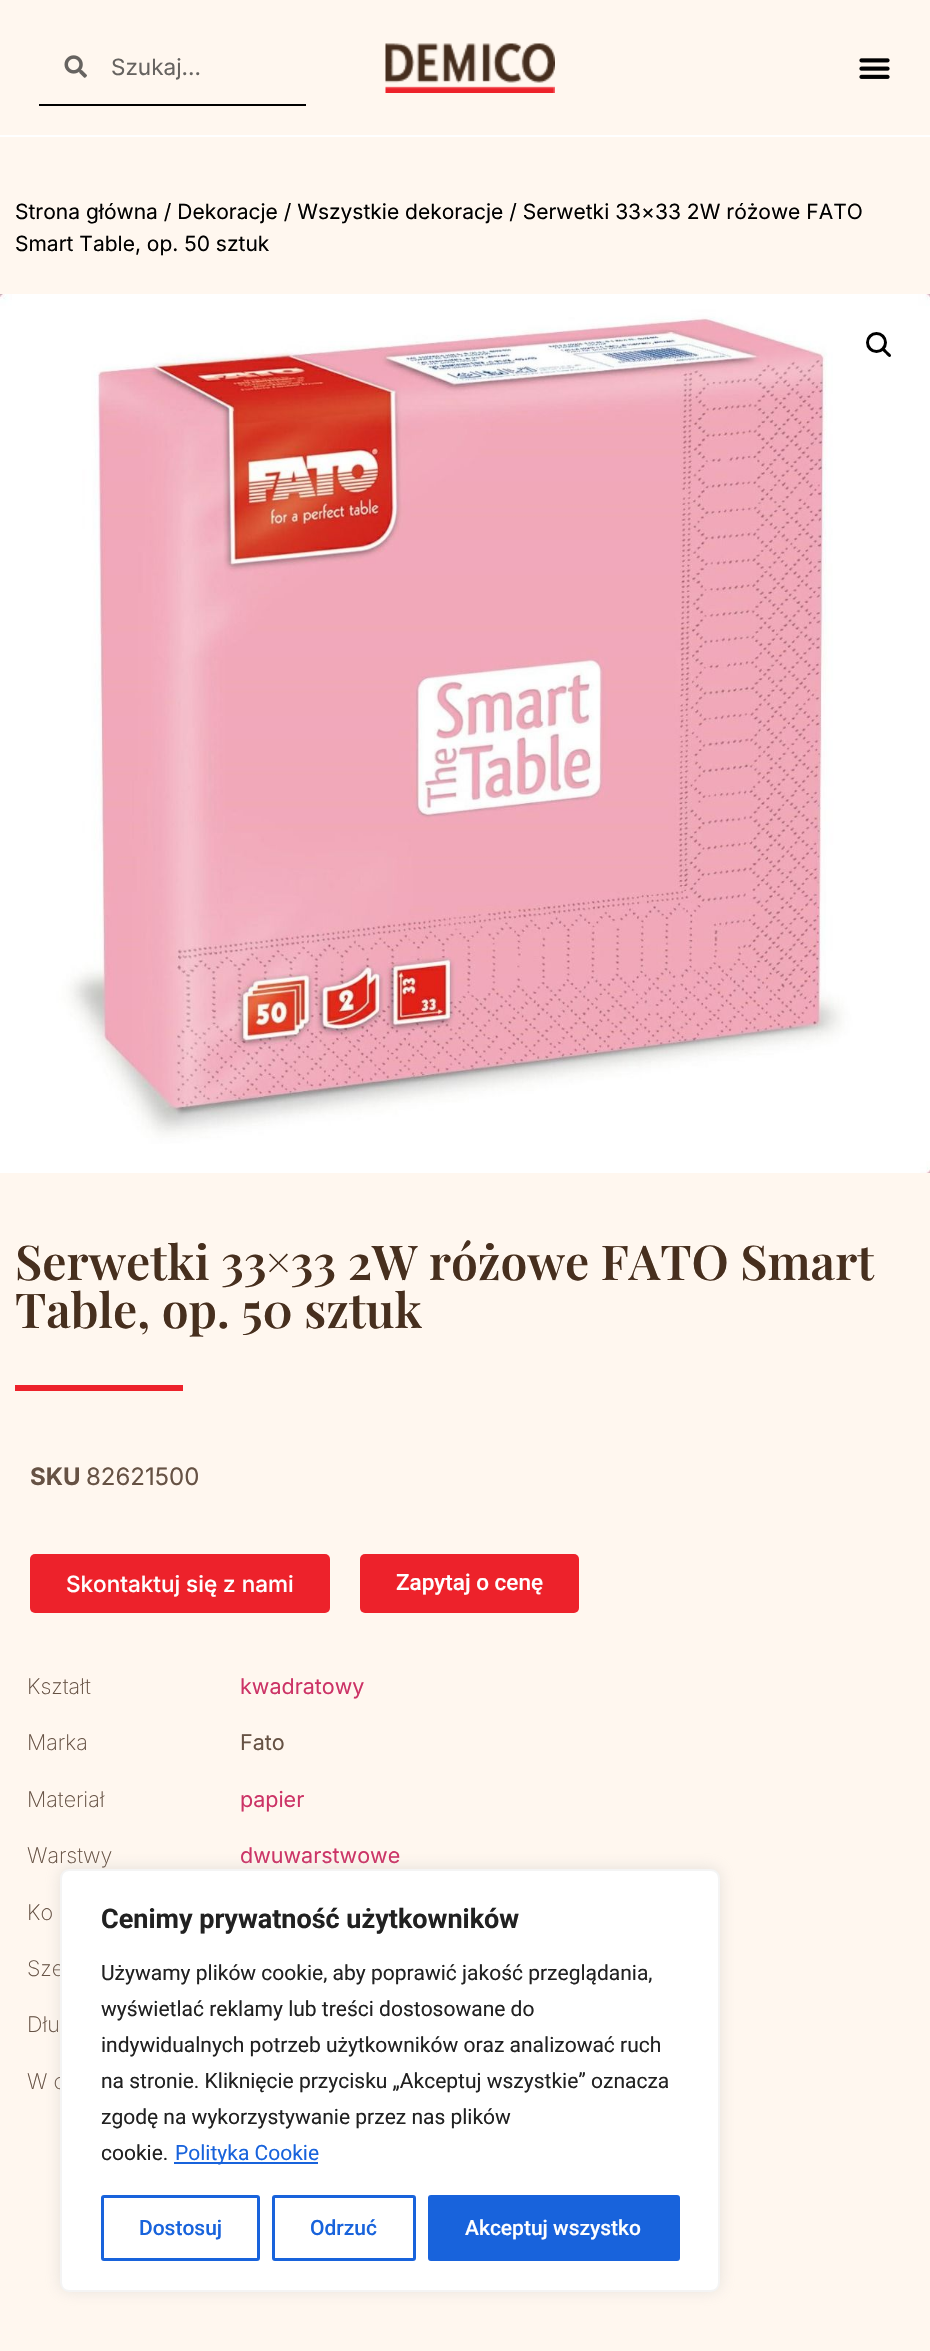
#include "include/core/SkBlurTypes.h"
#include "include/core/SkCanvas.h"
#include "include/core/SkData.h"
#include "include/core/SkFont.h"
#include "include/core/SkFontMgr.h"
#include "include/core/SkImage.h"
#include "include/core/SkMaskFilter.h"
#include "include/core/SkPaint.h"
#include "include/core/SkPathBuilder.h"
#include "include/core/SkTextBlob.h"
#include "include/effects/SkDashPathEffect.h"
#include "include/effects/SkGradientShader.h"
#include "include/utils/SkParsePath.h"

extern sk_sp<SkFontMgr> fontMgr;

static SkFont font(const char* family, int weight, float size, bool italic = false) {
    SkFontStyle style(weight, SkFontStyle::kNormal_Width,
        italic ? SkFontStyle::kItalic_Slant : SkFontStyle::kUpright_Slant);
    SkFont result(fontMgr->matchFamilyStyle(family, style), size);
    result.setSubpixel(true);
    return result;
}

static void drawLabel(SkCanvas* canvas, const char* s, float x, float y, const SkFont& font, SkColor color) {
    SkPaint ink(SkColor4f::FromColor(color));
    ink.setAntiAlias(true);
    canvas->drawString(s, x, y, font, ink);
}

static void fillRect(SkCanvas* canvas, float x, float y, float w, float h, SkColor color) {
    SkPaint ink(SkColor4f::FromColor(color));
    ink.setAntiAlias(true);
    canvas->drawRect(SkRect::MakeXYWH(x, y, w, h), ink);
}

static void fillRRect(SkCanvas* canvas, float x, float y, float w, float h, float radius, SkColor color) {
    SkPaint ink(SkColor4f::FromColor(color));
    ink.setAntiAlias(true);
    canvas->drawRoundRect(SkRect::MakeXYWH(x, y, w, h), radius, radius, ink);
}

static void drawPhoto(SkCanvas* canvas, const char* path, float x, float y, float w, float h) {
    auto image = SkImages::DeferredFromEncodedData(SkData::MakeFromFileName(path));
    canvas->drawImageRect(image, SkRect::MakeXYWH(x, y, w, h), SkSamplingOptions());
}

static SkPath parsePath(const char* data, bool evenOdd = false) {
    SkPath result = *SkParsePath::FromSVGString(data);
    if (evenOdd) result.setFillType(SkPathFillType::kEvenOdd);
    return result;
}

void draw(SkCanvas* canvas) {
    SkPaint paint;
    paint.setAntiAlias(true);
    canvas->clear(0xFFFFF7EF);
    fillRect(canvas, 0, 135, 930, 2, 0xFFFFFFFF);
    fillRect(canvas, 39, 104, 267, 2, 0xFF000000);
    drawPhoto(canvas, "assets/img1.png", 64, 55, 23, 23);
    SkFont font1 = font("Inter", 400, 22.5f);
    drawLabel(canvas, "Szukaj...", 111, 75, font1, 0xFF666360);
    drawPhoto(canvas, "assets/img2.png", 385, 43, 170, 50);
    drawPhoto(canvas, "assets/img3.png", 859, 58, 31, 21);
    SkFont font2 = font("Inter", 400, 21);
    drawLabel(canvas, "Strona główna / Dekoracje / Wszystkie dekoracje / Serwetki 33×33 2W różowe FATO", 15, 219, font2, 0xFF000000);
    drawLabel(canvas, "Smart Table, op. 50 sztuk", 15, 251, font2, 0xFF000000);
    drawPhoto(canvas, "assets/img4.png", 0, 294, 930, 879);
    paint.setStroke(true);
    paint.setStrokeWidth(3);
    paint.setColor(0xFF000000);
    canvas->drawCircle(876.5f, 342.5f, 9, paint);
    paint.setStroke(false);
    canvas->drawPath(parsePath("M882.5 348.5C884 346.5 886.5 350.5 887.5 351.5C888.5 352.5 892.5 355 890.5 356.5C889 358.5 886.5 354.5 885.5 353.5C884.5 352.5 880.5 350 882.5 348.5Z"), paint);
    SkFont font3 = font("Playfair Display", 600, 48);
    drawLabel(canvas, "Serwetki 33×33 2W różowe FATO Smart", 15, 1280, font3, 0xFF472F1E);
    drawLabel(canvas, "Table, op. 50 sztuk", 15, 1328, font3, 0xFF472F1E);
    fillRect(canvas, 15, 1385, 168, 6, 0xFFED222B);
    SkFont font4 = font("Inter", 700, 24);
    drawLabel(canvas, "SKU", 30, 1485, font4, 0xFF665244);
    SkFont font5 = font("Inter", 400, 24);
    drawLabel(canvas, "82621500", 86, 1485, font5, 0xFF665244);
    fillRRect(canvas, 30, 1554, 300, 59, 5, 0xFFED222B);
    SkFont font6 = font("Inter", 500, 22.5f);
    drawLabel(canvas, "Skontaktuj się z nami", 66, 1592, font6, 0xFFFFFFFF);
    fillRRect(canvas, 360, 1554, 219, 59, 5, 0xFFED222B);
    SkFont font7 = font("Roboto", 500, 22.5f);
    drawLabel(canvas, "Zapytaj o cenę", 396, 1590, font7, 0xFFFFFFFF);
    SkFont font8 = font("Inter", 200, 21.5f);
    drawLabel(canvas, "Kształt", 27, 1694, font8, 0xFF665244);
    SkFont font9 = font("Inter", 400, 21.5f);
    drawLabel(canvas, "kwadratowy", 240, 1694, font9, 0xFFCC3366);
    drawLabel(canvas, "Marka", 27, 1750, font8, 0xFF665244);
    drawLabel(canvas, "Fato", 240, 1750, font9, 0xFF665244);
    drawLabel(canvas, "Materiał", 27, 1807, font8, 0xFF665244);
    drawLabel(canvas, "papier", 240, 1807, font9, 0xFFCC3366);
    drawLabel(canvas, "Warstwy", 27, 1863, font8, 0xFF665244);
    drawLabel(canvas, "dwuwarstwowe", 240, 1863, font9, 0xFFCC3366);
    drawLabel(canvas, "Ko", 27, 1920, font8, 0xFF665244);
    drawLabel(canvas, "Sze", 27, 1976, font8, 0xFF665244);
    drawLabel(canvas, "Dłu", 27, 2032, font8, 0xFF665244);
    drawLabel(canvas, "W o", 27, 2089, font8, 0xFF665244);
    paint.setColor(0x4DACABAB);
    paint.setMaskFilter(SkMaskFilter::MakeBlur(kNormal_SkBlurStyle, 7.5f));
    canvas->drawRoundRect(SkRect::MakeXYWH(60, 1868, 660, 423), 9, 9, paint);
    paint.setMaskFilter(nullptr);
    paint.setColor(0xFFFFFFFF);
    canvas->drawRoundRect(SkRect::MakeXYWH(61, 1870, 658, 421), 8, 8, paint);
    paint.setStroke(true);
    paint.setStrokeWidth(2);
    paint.setColor(0xFFF4F4F4);
    canvas->drawRoundRect(SkRect::MakeXYWH(61, 1870, 658, 421), 8, 8, paint);
    SkFont font10 = font("Roboto", 700, 27);
    drawLabel(canvas, "Cenimy prywatność użytkowników", 101, 1928, font10, 0xFF212121);
    SkFont font11 = font("Roboto", 400, 21);
    drawLabel(canvas, "Używamy plików cookie, aby poprawić jakość przeglądania,", 101, 1980, font11, 0xFF212121);
    drawLabel(canvas, "wyświetlać reklamy lub treści dostosowane do", 101, 2016, font11, 0xFF212121);
    drawLabel(canvas, "indywidualnych potrzeb użytkowników oraz analizować ruch", 101, 2052, font11, 0xFF212121);
    drawLabel(canvas, "na stronie. Kliknięcie przycisku „Akceptuj wszystkie” oznacza", 101, 2088, font11, 0xFF212121);
    drawLabel(canvas, "zgodę na wykorzystywanie przez nas plików", 101, 2124, font11, 0xFF212121);
    drawLabel(canvas, "cookie.", 101, 2160, font11, 0xFF212121);
    fillRect(canvas, 174, 2162, 144, 2, 0xFF1863DC);
    drawLabel(canvas, "Polityka Cookie", 175, 2160, font11, 0xFF1863DC);
    paint.setStrokeWidth(3);
    paint.setColor(0xFF1863DC);
    canvas->drawRoundRect(SkRect::MakeXYWH(102.5f, 2196.5f, 156, 63), 1.5f, 1.5f, paint);
    SkFont font12 = font("Roboto", 500, 21);
    drawLabel(canvas, "Dostosuj", 139, 2235, font12, 0xFF1863DC);
    canvas->drawRoundRect(SkRect::MakeXYWH(273.5f, 2196.5f, 141, 63), 1.5f, 1.5f, paint);
    drawLabel(canvas, "Odrzuć", 310, 2235, font12, 0xFF1863DC);
    paint.setStroke(false);
    canvas->drawRoundRect(SkRect::MakeXYWH(429.5f, 2196.5f, 249, 63), 1.5f, 1.5f, paint);
    paint.setStroke(true);
    canvas->drawRoundRect(SkRect::MakeXYWH(429.5f, 2196.5f, 249, 63), 1.5f, 1.5f, paint);
    drawLabel(canvas, "Akceptuj wszystko", 465, 2235, font12, 0xFFFFFFFF);
}
